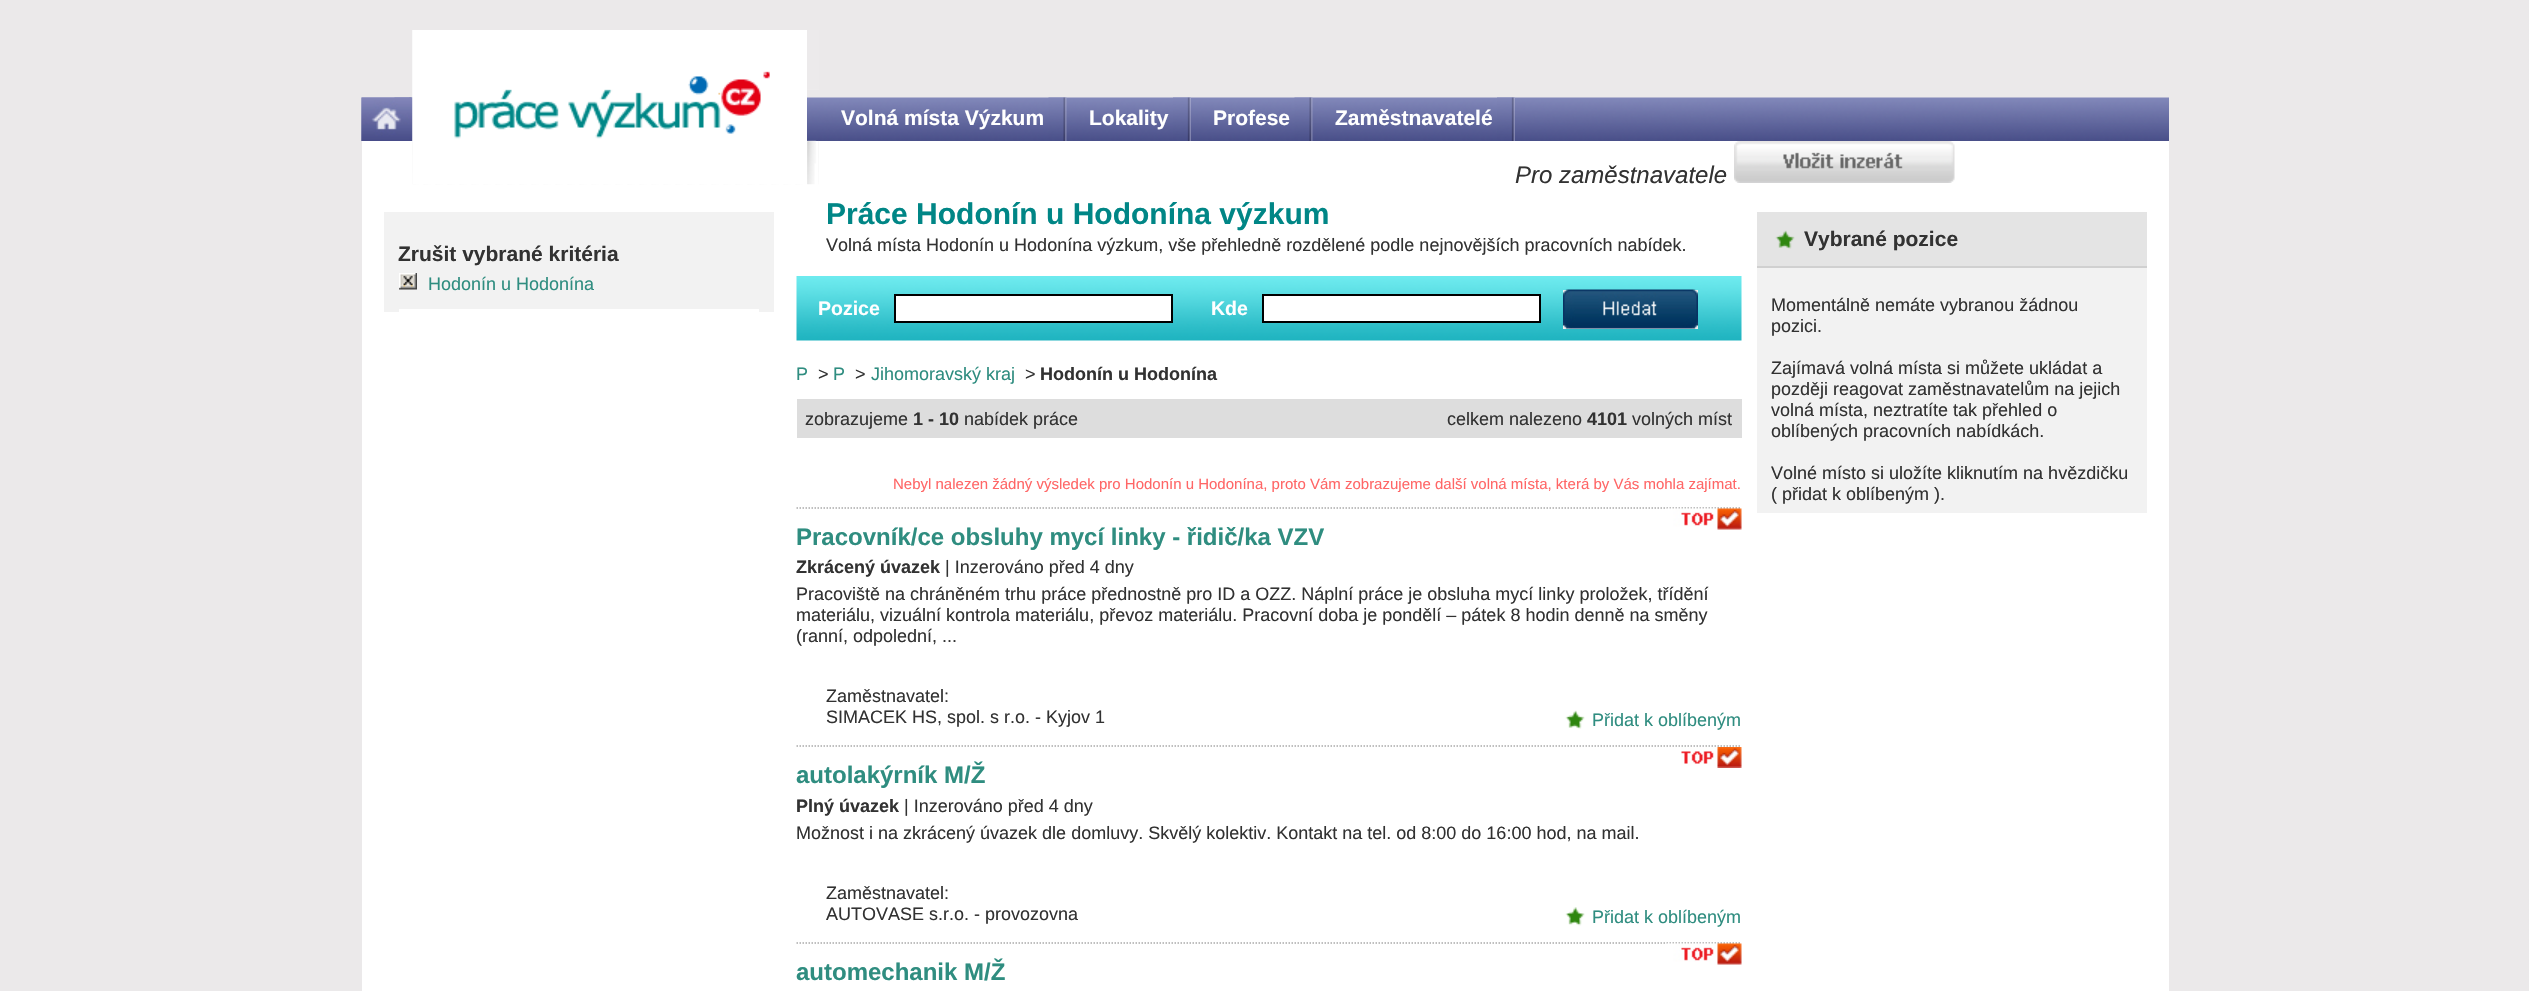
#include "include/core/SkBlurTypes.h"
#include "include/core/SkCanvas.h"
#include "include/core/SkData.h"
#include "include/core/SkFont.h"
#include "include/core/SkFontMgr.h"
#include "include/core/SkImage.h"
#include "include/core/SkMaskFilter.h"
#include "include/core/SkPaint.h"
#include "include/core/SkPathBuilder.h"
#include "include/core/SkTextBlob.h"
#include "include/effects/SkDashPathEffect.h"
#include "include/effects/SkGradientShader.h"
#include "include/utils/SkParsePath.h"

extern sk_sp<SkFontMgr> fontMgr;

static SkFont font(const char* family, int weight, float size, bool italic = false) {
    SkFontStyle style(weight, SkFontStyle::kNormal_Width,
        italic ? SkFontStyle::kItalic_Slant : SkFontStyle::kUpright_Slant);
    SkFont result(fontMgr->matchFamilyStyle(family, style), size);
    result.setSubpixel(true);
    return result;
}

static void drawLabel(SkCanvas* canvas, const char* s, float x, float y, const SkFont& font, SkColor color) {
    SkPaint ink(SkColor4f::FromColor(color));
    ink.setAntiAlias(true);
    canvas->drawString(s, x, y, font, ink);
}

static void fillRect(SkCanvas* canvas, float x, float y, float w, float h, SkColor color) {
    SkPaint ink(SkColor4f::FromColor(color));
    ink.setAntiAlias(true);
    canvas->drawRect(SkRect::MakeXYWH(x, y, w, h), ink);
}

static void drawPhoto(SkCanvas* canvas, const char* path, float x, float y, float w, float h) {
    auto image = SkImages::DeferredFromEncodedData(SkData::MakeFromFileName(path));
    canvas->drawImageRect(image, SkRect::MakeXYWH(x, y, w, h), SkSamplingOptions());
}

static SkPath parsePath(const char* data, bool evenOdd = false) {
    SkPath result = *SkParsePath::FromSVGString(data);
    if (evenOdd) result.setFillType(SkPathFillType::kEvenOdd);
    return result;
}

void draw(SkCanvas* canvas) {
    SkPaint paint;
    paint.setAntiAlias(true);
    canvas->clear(0xFFEBE9EA);
    fillRect(canvas, 362, 141, 1807, 850, 0xFFFFFFFF);
    drawPhoto(canvas, "assets/img1.png", 361, 97, 1808, 44);
    drawPhoto(canvas, "assets/img2.png", 394, 97, 19, 44);
    drawPhoto(canvas, "assets/img3.png", 361, 97, 52, 44);
    drawPhoto(canvas, "assets/img4.png", 412, 30, 407, 155);
    fillRect(canvas, 412, 30, 1, 111, 0x80FFFFFF);
    drawPhoto(canvas, "assets/img5.png", 1048, 97, 19, 44);
    SkFont font1 = font("Liberation Sans", 700, 21);
    drawLabel(canvas, "Volná místa Výzkum", 841, 125, font1, 0xFFFFFFFF);
    drawPhoto(canvas, "assets/img6.png", 1173, 97, 18, 44);
    drawLabel(canvas, "Lokality", 1089, 125, font1, 0xFFFFFFFF);
    drawPhoto(canvas, "assets/img7.png", 1294, 97, 19, 44);
    drawLabel(canvas, "Profese", 1213, 125, font1, 0xFFFFFFFF);
    drawPhoto(canvas, "assets/img6.png", 1497, 97, 18, 44);
    drawLabel(canvas, "Zaměstnavatelé", 1335, 125, font1, 0xFFFFFFFF);
    SkFont font2 = font("Liberation Sans", 400, 24, true);
    drawLabel(canvas, "Pro zaměstnavatele", 1515, 183, font2, 0xFF323232);
    drawPhoto(canvas, "assets/img8.png", 1734, 141, 221, 42);
    fillRect(canvas, 384, 212, 390, 100, 0xFFF2F2F2);
    drawLabel(canvas, "Zrušit vybrané kritéria", 398, 261, font1, 0xFF323232);
    drawPhoto(canvas, "assets/img9.png", 399, 273, 18, 17);
    SkFont font3 = font("Liberation Sans", 400, 18);
    drawLabel(canvas, "Hodonín u Hodonína", 428, 290, font3, 0xFF2F8D80);
    fillRect(canvas, 399, 309, 360, 3, 0xFFFFFFFF);
    SkFont font4 = font("Liberation Sans", 700, 30);
    drawLabel(canvas, "Práce Hodonín u Hodonína výzkum", 826, 224, font4, 0xFF008686);
    drawLabel(canvas, "Volná místa Hodonín u Hodonína výzkum, vše přehledně rozdělené podle nejnovějších pracovních nabídek.", 826, 251, font3, 0xFF323232);
    drawPhoto(canvas, "assets/img10.png", 796, 276, 946, 65);
    SkFont font5 = font("Liberation Sans", 700, 19.5f);
    drawLabel(canvas, "Pozice", 818, 315, font5, 0xFFFFFFFF);
    paint.setColor(0xFFFFFFFF);
    canvas->drawRect(SkRect::MakeXYWH(895, 295, 277, 27), paint);
    paint.setStroke(true);
    paint.setStrokeWidth(2);
    paint.setColor(0xFF000000);
    canvas->drawRect(SkRect::MakeXYWH(895, 295, 277, 27), paint);
    drawLabel(canvas, "Kde", 1211, 315, font5, 0xFFFFFFFF);
    paint.setStroke(false);
    paint.setColor(0xFFFFFFFF);
    canvas->drawRect(SkRect::MakeXYWH(1263, 295, 277, 27), paint);
    paint.setStroke(true);
    paint.setColor(0xFF000000);
    canvas->drawRect(SkRect::MakeXYWH(1263, 295, 277, 27), paint);
    fillRect(canvas, 1563, 290, 135, 39, 0xFFEFEFEF);
    drawPhoto(canvas, "assets/img11.png", 1563, 289, 135, 40);
    drawLabel(canvas, "P", 796, 380, font3, 0xFF2F8D80);
    drawLabel(canvas, ">", 818, 380, font3, 0xFF323232);
    drawLabel(canvas, "P", 833, 380, font3, 0xFF2F8D80);
    drawLabel(canvas, ">", 855, 380, font3, 0xFF323232);
    drawLabel(canvas, "Jihomoravský kraj", 871, 380, font3, 0xFF2F8D80);
    drawLabel(canvas, ">", 1025, 380, font3, 0xFF323232);
    SkFont font6 = font("Liberation Sans", 700, 18);
    drawLabel(canvas, "Hodonín u Hodonína", 1040, 380, font6, 0xFF323232);
    fillRect(canvas, 797, 399, 945, 39, 0xFFDDDDDD);
    drawLabel(canvas, "zobrazujeme", 805, 425, font3, 0xFF323232);
    drawLabel(canvas, "1 - 10", 913, 425, font6, 0xFF323232);
    drawLabel(canvas, "nabídek práce", 964, 425, font3, 0xFF323232);
    drawLabel(canvas, "celkem nalezeno", 1447, 425, font3, 0xFF323232);
    drawLabel(canvas, "4101", 1587, 425, font6, 0xFF323232);
    drawLabel(canvas, "volných míst", 1632, 425, font3, 0xFF323232);
    SkFont font7 = font("Liberation Sans", 400, 15);
    drawLabel(canvas, "Nebyl nalezen žádný výsledek pro Hodonín u Hodonína, proto Vám zobrazujeme další volná místa, která by Vás mohla zajímat.", 893, 489, font7, 0xFFFF6666);
    paint.setStrokeWidth(1.5f);
    paint.setColor(0xFFAAAAAA);
    paint.setPathEffect(SkDashPathEffect::Make({{1.5f, 1.5f}}, 0));
    canvas->drawPath(parsePath("M796.5 508H1741.5"), paint);
    paint.setPathEffect(nullptr);
    drawPhoto(canvas, "assets/img12.png", 1666, 508, 76, 22);
    SkFont font8 = font("Liberation Sans", 700, 24);
    drawLabel(canvas, "Pracovník/ce obsluhy mycí linky - řidič/ka VZV", 796, 545, font8, 0xFF2F8D80);
    drawLabel(canvas, "Zkrácený úvazek", 796, 573, font6, 0xFF323232);
    drawLabel(canvas, "| Inzerováno před 4 dny", 945, 573, font3, 0xFF323232);
    drawLabel(canvas, "Pracoviště na chráněném trhu práce přednostně pro ID a OZZ. Náplní práce je obsluha mycí linky proložek, třídění", 796, 600, font3, 0xFF323232);
    drawLabel(canvas, "materiálu, vizuální kontrola materiálu, převoz materiálu. Pracovní doba je pondělí – pátek 8 hodin denně na směny", 796, 621, font3, 0xFF323232);
    drawLabel(canvas, "(ranní, odpolední, ...", 796, 642, font3, 0xFF323232);
    drawLabel(canvas, "Zaměstnavatel:", 826, 702, font3, 0xFF323232);
    drawLabel(canvas, "SIMACEK HS, spol. s r.o. - Kyjov 1", 826, 723, font3, 0xFF323232);
    drawPhoto(canvas, "assets/img13.png", 1565, 710, 20, 19);
    drawLabel(canvas, "Přidat k oblíbeným", 1592, 726, font3, 0xFF2F8D80);
    paint.setPathEffect(SkDashPathEffect::Make({{1.5f, 1.5f}}, 0));
    canvas->drawPath(parsePath("M796.5 746H1741.5"), paint);
    paint.setPathEffect(nullptr);
    drawPhoto(canvas, "assets/img14.png", 1681, 747, 61, 21);
    drawLabel(canvas, "autolakýrník M/Ž", 796, 783, font8, 0xFF2F8D80);
    drawLabel(canvas, "Plný úvazek", 796, 812, font6, 0xFF323232);
    drawLabel(canvas, "| Inzerováno před 4 dny", 904, 812, font3, 0xFF323232);
    drawLabel(canvas, "Možnost i na zkrácený úvazek dle domluvy. Skvělý kolektiv. Kontakt na tel. od 8:00 do 16:00 hod, na mail.", 796, 839, font3, 0xFF323232);
    drawLabel(canvas, "Zaměstnavatel:", 826, 899, font3, 0xFF323232);
    drawLabel(canvas, "AUTOVASE s.r.o. - provozovna", 826, 920, font3, 0xFF323232);
    drawPhoto(canvas, "assets/img15.png", 1565, 907, 20, 19);
    drawLabel(canvas, "Přidat k oblíbeným", 1592, 923, font3, 0xFF2F8D80);
    paint.setPathEffect(SkDashPathEffect::Make({{1.5f, 1.5f}}, 0));
    canvas->drawPath(parsePath("M796.5 943H1741.5"), paint);
    paint.setPathEffect(nullptr);
    drawPhoto(canvas, "assets/img12.png", 1666, 943, 76, 22);
    drawLabel(canvas, "automechanik M/Ž", 796, 980, font8, 0xFF2F8D80);
    fillRect(canvas, 1757, 268, 390, 245, 0xFFF2F2F2);
    fillRect(canvas, 1757, 212, 390, 54, 0xFFE4E4E4);
    fillRect(canvas, 1757, 266, 390, 2, 0xFFD0D0D0);
    drawPhoto(canvas, "assets/img16.png", 1775, 230, 20, 19);
    drawLabel(canvas, "Vybrané pozice", 1804, 246, font1, 0xFF323232);
    drawLabel(canvas, "Momentálně nemáte vybranou žádnou", 1771, 311, font3, 0xFF323232);
    drawLabel(canvas, "pozici.", 1771, 332, font3, 0xFF323232);
    drawLabel(canvas, "Zajímavá volná místa si můžete ukládat a", 1771, 374, font3, 0xFF323232);
    drawLabel(canvas, "později reagovat zaměstnavatelům na jejich", 1771, 395, font3, 0xFF323232);
    drawLabel(canvas, "volná místa, neztratíte tak přehled o", 1771, 416, font3, 0xFF323232);
    drawLabel(canvas, "oblíbených pracovních nabídkách.", 1771, 437, font3, 0xFF323232);
    drawLabel(canvas, "Volné místo si uložíte kliknutím na hvězdičku", 1771, 479, font3, 0xFF323232);
    drawLabel(canvas, "( přidat k oblíbeným ).", 1771, 500, font3, 0xFF323232);
}
